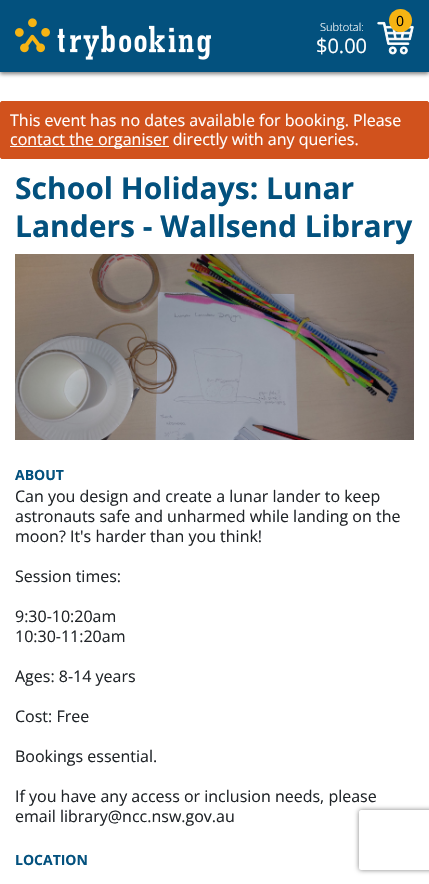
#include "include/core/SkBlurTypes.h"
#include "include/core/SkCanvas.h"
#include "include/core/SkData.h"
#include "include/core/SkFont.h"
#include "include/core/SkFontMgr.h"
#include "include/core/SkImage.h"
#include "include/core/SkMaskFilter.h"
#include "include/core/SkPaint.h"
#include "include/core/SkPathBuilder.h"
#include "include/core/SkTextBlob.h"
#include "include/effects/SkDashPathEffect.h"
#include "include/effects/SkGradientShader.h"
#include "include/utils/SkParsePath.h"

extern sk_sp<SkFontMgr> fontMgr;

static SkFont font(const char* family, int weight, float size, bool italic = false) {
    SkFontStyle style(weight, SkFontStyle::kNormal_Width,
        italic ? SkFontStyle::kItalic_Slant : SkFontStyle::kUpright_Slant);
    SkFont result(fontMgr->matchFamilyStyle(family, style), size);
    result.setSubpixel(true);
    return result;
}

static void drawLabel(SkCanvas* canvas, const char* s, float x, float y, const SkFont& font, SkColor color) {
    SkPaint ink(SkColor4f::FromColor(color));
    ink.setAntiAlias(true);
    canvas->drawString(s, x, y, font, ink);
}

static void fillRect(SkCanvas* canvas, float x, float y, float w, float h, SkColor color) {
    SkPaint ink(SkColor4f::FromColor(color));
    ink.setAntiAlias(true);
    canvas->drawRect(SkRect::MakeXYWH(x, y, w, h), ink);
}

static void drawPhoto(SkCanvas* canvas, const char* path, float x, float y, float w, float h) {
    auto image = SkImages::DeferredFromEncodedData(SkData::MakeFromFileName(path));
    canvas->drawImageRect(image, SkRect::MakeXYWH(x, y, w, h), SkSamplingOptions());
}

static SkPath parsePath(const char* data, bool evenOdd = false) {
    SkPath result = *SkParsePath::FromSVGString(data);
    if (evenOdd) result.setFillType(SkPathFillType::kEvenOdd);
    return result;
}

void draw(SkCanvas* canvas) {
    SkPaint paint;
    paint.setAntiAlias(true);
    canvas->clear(0xFFFFFFFF);
    paint.setColor(0x80000000);
    paint.setMaskFilter(SkMaskFilter::MakeBlur(kNormal_SkBlurStyle, 2));
    canvas->drawRect(SkRect::MakeXYWH(0, 2, 429, 72), paint);
    paint.setMaskFilter(nullptr);
    fillRect(canvas, 0, 0, 429, 72, 0xFF03517E);
    drawPhoto(canvas, "assets/img1.png", 15, 18, 196, 42);
    SkFont font1 = font("Open Sans", 300, 11);
    drawLabel(canvas, "Subtotal:", 320, 31, font1, 0xFFFFFFFF);
    SkFont font2 = font("Open Sans", 400, 20);
    drawLabel(canvas, "$0.00", 316, 53, font2, 0xFFFFFFFF);
    drawPhoto(canvas, "assets/img2.png", 377, 21, 37, 34);
    paint.setColor(0xFFF6B413);
    canvas->drawCircle(400.5f, 20.5f, 11.5f, paint);
    SkFont font3 = font("Open Sans", 400, 14);
    drawLabel(canvas, "0", 396, 26, font3, 0xFF000000);
    paint.setColor(0xFFD1521D);
    canvas->drawRoundRect(SkRect::MakeXYWH(0.5f, 101.5f, 428, 57), 1.5f, 1.5f, paint);
    paint.setStroke(true);
    paint.setStrokeWidth(1);
    canvas->drawRoundRect(SkRect::MakeXYWH(0.5f, 101.5f, 428, 57), 1.5f, 1.5f, paint);
    SkFont font4 = font("Open Sans", 400, 16);
    drawLabel(canvas, "This event has no dates available for booking. Please", 10, 126, font4, 0xFFFFFFFF);
    fillRect(canvas, 10, 146, 159, 1, 0xFFFFFFFF);
    drawLabel(canvas, "contact the organiser directly with any queries.", 10, 145, font4, 0xFFFFFFFF);
    SkFont font5 = font("Open Sans", 700, 30);
    drawLabel(canvas, "School Holidays: Lunar", 15, 199, font5, 0xFF03517E);
    drawLabel(canvas, "Landers - Wallsend Library", 15, 237, font5, 0xFF03517E);
    drawPhoto(canvas, "assets/img3.png", 15, 254, 399, 186);
    SkFont font6 = font("Open Sans", 700, 14);
    drawLabel(canvas, "ABOUT", 15, 480, font6, 0xFF03517E);
    drawLabel(canvas, "Can you design and create a lunar lander to keep", 15, 502, font4, 0xFF212529);
    drawLabel(canvas, "astronauts safe and unharmed while landing on the", 15, 522, font4, 0xFF212529);
    drawLabel(canvas, "moon? It's harder than you think!", 15, 542, font4, 0xFF212529);
    drawLabel(canvas, "Session times:", 15, 582, font4, 0xFF212529);
    drawLabel(canvas, "9:30-10:20am", 15, 622, font4, 0xFF212529);
    drawLabel(canvas, "10:30-11:20am", 15, 642, font4, 0xFF212529);
    drawLabel(canvas, "Ages: 8-14 years", 15, 682, font4, 0xFF212529);
    drawLabel(canvas, "Cost: Free", 15, 722, font4, 0xFF212529);
    drawLabel(canvas, "Bookings essential.", 15, 762, font4, 0xFF212529);
    drawLabel(canvas, "If you have any access or inclusion needs, please", 15, 802, font4, 0xFF212529);
    drawLabel(canvas, "email library@ncc.nsw.gov.au", 15, 822, font4, 0xFF212529);
    drawLabel(canvas, "LOCATION", 15, 865, font6, 0xFF03517E);
    canvas->save();
    canvas->clipPath(parsePath("M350 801H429V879H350ZM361 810H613C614 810 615 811 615 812V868C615 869 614 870 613 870H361C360 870 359 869 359 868V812C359 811 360 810 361 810Z", true), true);
    paint.setStroke(false);
    paint.setColor(0xFF808080);
    paint.setMaskFilter(SkMaskFilter::MakeBlur(kNormal_SkBlurStyle, 2.5f));
    canvas->drawRoundRect(SkRect::MakeXYWH(359, 810, 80, 60), 2, 2, paint);
    paint.setMaskFilter(nullptr);
    canvas->restore();
}
